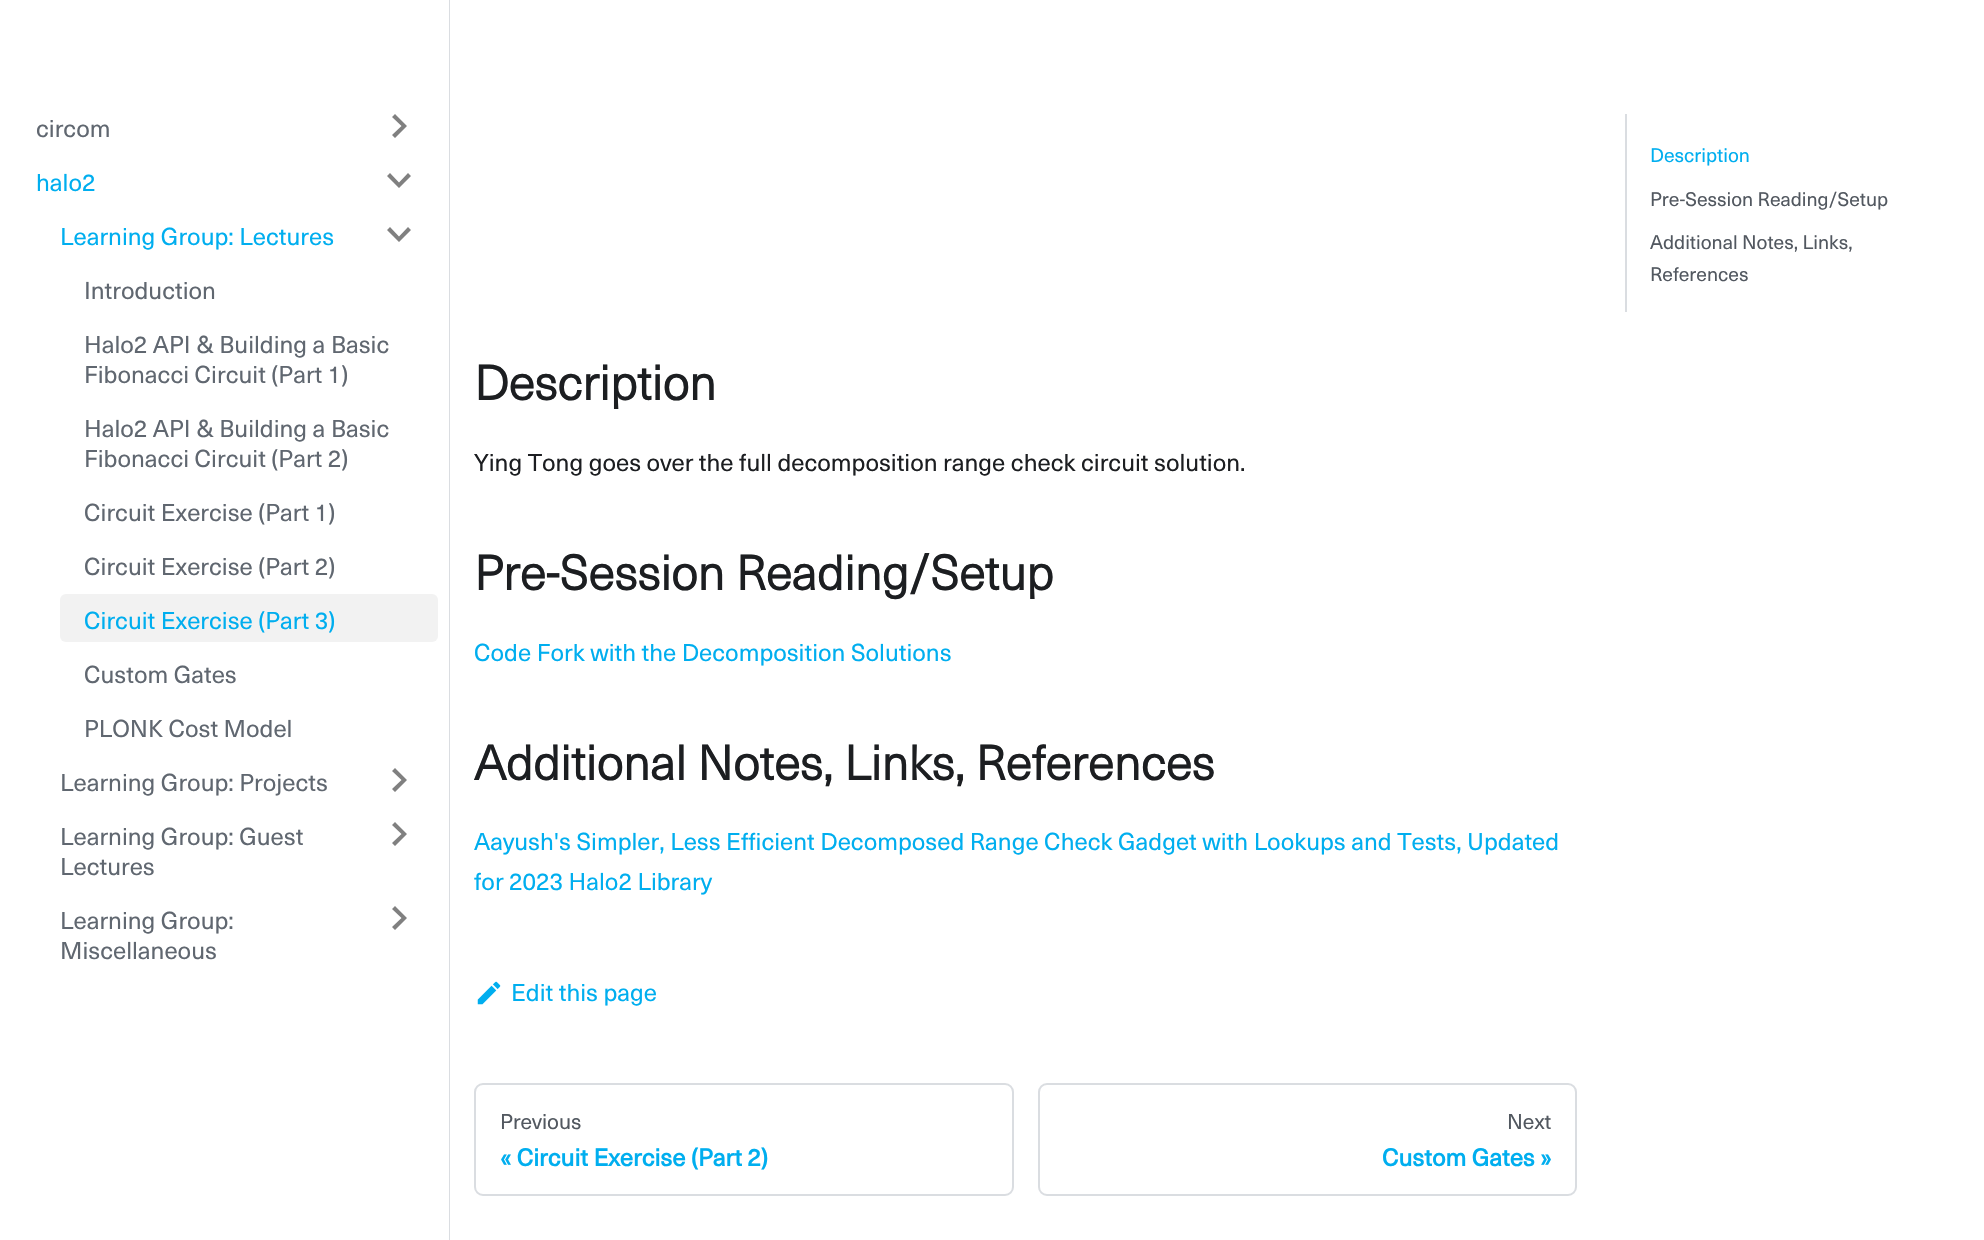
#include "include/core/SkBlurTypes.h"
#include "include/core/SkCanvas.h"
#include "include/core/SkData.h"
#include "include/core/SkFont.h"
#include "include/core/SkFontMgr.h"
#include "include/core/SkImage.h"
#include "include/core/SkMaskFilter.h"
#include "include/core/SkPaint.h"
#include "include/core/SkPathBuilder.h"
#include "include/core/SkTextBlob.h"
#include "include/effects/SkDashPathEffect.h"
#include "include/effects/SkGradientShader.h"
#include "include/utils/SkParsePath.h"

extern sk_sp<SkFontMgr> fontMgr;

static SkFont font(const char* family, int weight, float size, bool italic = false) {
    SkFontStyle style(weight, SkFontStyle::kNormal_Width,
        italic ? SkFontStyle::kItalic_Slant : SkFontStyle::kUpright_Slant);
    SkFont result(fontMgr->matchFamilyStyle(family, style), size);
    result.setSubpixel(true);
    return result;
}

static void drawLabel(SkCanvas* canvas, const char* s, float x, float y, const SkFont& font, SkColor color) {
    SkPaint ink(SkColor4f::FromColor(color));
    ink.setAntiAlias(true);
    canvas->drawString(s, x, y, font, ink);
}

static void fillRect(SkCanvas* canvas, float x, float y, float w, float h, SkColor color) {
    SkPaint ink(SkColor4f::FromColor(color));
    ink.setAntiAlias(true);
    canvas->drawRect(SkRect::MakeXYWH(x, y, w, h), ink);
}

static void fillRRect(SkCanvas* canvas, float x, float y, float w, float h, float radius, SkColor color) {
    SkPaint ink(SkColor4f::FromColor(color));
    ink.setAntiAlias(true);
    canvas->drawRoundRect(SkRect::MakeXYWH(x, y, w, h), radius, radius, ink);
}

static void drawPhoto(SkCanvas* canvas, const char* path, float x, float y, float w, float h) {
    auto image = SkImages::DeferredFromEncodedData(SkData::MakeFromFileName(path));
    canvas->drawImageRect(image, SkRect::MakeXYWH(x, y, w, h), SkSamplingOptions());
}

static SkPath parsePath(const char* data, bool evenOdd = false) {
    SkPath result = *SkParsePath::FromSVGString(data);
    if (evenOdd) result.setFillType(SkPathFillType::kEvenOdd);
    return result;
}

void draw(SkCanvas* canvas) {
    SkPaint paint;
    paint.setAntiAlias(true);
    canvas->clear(0xFFFFFFFF);
    fillRect(canvas, 449, 0, 1, 1240, 0xFFDADDE1);
    SkFont font1 = font("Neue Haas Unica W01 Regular", 400, 24);
    drawLabel(canvas, "circom", 36, 137, font1, 0xFF606770);
    paint.setColor(0xFF808080);
    canvas->drawPath(parsePath("M392 117L401.5 126L392 135L395 138L407 126L395 114Z"), paint);
    drawLabel(canvas, "halo2", 36, 191, font1, 0xFF00AEEF);
    canvas->drawPath(parsePath("M408 173L399 182.5L390 173L387 176L399 188L411 176Z"), paint);
    drawLabel(canvas, "Learning Group: Lectures", 60, 245, font1, 0xFF00AEEF);
    canvas->drawPath(parsePath("M408 227L399 236.5L390 227L387 230L399 242L411 230Z"), paint);
    drawLabel(canvas, "Introduction", 84, 299, font1, 0xFF606770);
    drawLabel(canvas, "Halo2 API & Building a Basic", 84, 353, font1, 0xFF606770);
    drawLabel(canvas, "Fibonacci Circuit (Part 1)", 84, 383, font1, 0xFF606770);
    drawLabel(canvas, "Halo2 API & Building a Basic", 84, 437, font1, 0xFF606770);
    drawLabel(canvas, "Fibonacci Circuit (Part 2)", 84, 467, font1, 0xFF606770);
    drawLabel(canvas, "Circuit Exercise (Part 1)", 84, 521, font1, 0xFF606770);
    drawLabel(canvas, "Circuit Exercise (Part 2)", 84, 575, font1, 0xFF606770);
    fillRRect(canvas, 60, 594, 378, 48, 6, 0xFFF2F2F2);
    drawLabel(canvas, "Circuit Exercise (Part 3)", 84, 629, font1, 0xFF00AEEF);
    drawLabel(canvas, "Custom Gates", 84, 683, font1, 0xFF606770);
    drawLabel(canvas, "PLONK Cost Model", 84, 737, font1, 0xFF606770);
    drawLabel(canvas, "Learning Group: Projects", 60, 791, font1, 0xFF606770);
    canvas->drawPath(parsePath("M392 771L401.5 780L392 789L395 792L407 780L395 768Z"), paint);
    drawLabel(canvas, "Learning Group: Guest", 60, 845, font1, 0xFF606770);
    canvas->drawPath(parsePath("M392 825L401.5 834L392 843L395 846L407 834L395 822Z"), paint);
    drawLabel(canvas, "Lectures", 60, 875, font1, 0xFF606770);
    drawLabel(canvas, "Learning Group:", 60, 929, font1, 0xFF606770);
    canvas->drawPath(parsePath("M392 909L401.5 918L392 927L395 930L407 918L395 906Z"), paint);
    drawLabel(canvas, "Miscellaneous", 60, 959, font1, 0xFF606770);
    fillRect(canvas, 1625, 114, 2, 198, 0xFFDADDE1);
    SkFont font2 = font("Neue Haas Unica W01 Regular", 400, 19.25f);
    drawLabel(canvas, "Description", 1650, 162, font2, 0xFF00AEEF);
    drawLabel(canvas, "Pre-Session Reading/Setup", 1650, 206, font2, 0xFF525860);
    drawLabel(canvas, "Additional Notes, Links,", 1650, 249, font2, 0xFF525860);
    drawLabel(canvas, "References", 1650, 281, font2, 0xFF525860);
    SkFont font3 = font("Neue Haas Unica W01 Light", 700, 48);
    drawLabel(canvas, "Description", 474, 400, font3, 0xFF1C1E21);
    drawLabel(canvas, "Ying Tong goes over the full decomposition range check circuit solution.", 474, 471, font1, 0xFF1C1E21);
    drawLabel(canvas, "Pre-Session Reading/Setup", 474, 590, font3, 0xFF1C1E21);
    drawLabel(canvas, "Code Fork with the Decomposition Solutions", 474, 661, font1, 0xFF00AEEF);
    drawLabel(canvas, "Additional Notes, Links, References", 474, 780, font3, 0xFF1C1E21);
    drawLabel(canvas, "Aayush's Simpler, Less Efficient Decomposed Range Check Gadget with Lookups and Tests, Updated", 474, 850, font1, 0xFF00AEEF);
    drawLabel(canvas, "for 2023 Halo2 Library", 474, 890, font1, 0xFF00AEEF);
    drawPhoto(canvas, "assets/img1.png", 477, 981, 24, 24);
    drawLabel(canvas, "Edit this page", 511, 1001, font1, 0xFF00AEEF);
    paint.setStroke(true);
    paint.setStrokeWidth(2);
    paint.setColor(0xFFDADDE1);
    canvas->drawRoundRect(SkRect::MakeXYWH(475, 1084, 538, 111), 8, 8, paint);
    SkFont font4 = font("Neue Haas Unica W01 Regular", 400, 21);
    drawLabel(canvas, "Previous", 500, 1129, font4, 0xFF525860);
    SkFont font5 = font("Neue Haas Unica W01 Regular", 700, 24);
    drawLabel(canvas, "« Circuit Exercise (Part 2)", 500, 1166, font5, 0xFF00AEEF);
    canvas->drawRoundRect(SkRect::MakeXYWH(1039, 1084, 537, 111), 8, 8, paint);
    drawLabel(canvas, "Next", 1507, 1129, font4, 0xFF525860);
    drawLabel(canvas, "Custom Gates »", 1382, 1166, font5, 0xFF00AEEF);
}
